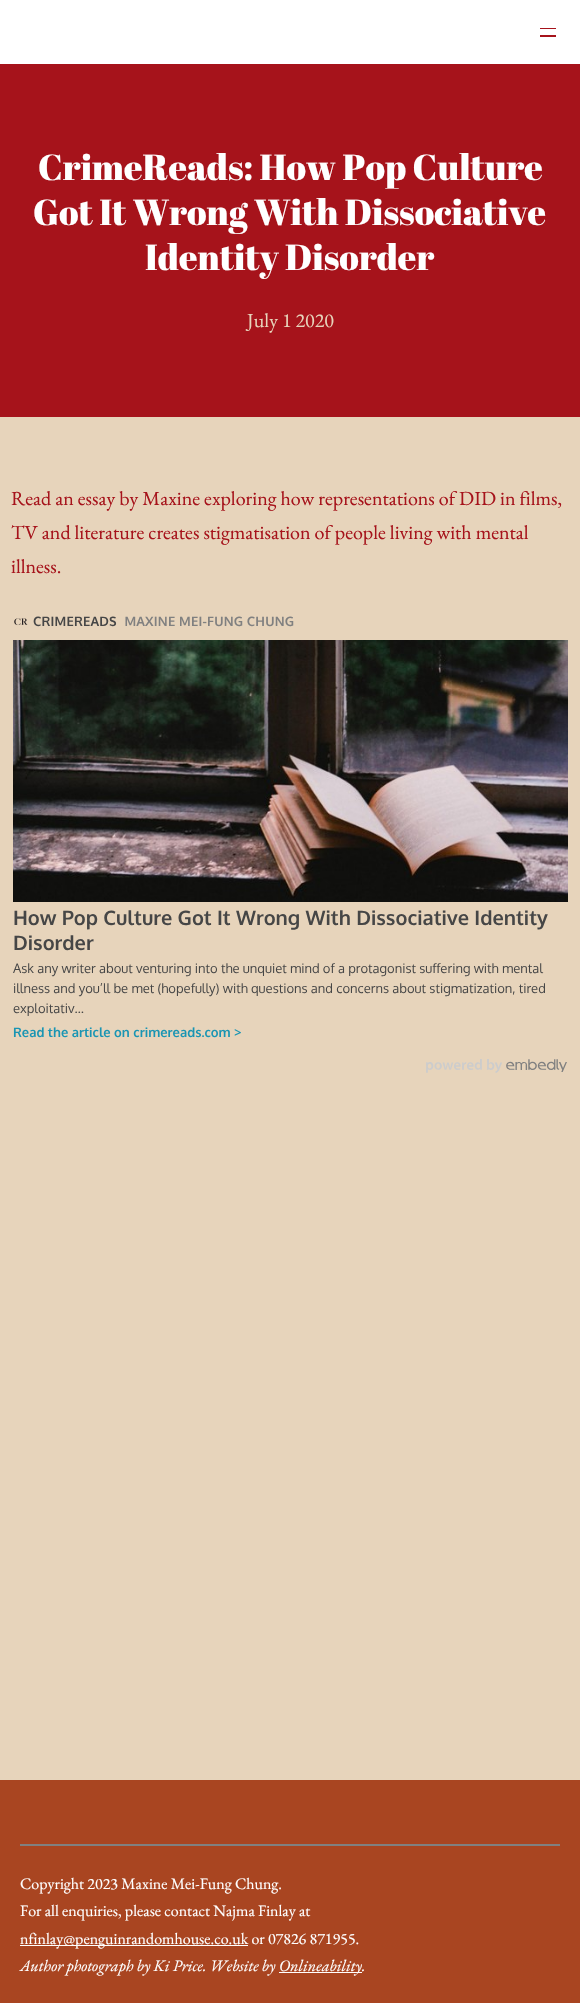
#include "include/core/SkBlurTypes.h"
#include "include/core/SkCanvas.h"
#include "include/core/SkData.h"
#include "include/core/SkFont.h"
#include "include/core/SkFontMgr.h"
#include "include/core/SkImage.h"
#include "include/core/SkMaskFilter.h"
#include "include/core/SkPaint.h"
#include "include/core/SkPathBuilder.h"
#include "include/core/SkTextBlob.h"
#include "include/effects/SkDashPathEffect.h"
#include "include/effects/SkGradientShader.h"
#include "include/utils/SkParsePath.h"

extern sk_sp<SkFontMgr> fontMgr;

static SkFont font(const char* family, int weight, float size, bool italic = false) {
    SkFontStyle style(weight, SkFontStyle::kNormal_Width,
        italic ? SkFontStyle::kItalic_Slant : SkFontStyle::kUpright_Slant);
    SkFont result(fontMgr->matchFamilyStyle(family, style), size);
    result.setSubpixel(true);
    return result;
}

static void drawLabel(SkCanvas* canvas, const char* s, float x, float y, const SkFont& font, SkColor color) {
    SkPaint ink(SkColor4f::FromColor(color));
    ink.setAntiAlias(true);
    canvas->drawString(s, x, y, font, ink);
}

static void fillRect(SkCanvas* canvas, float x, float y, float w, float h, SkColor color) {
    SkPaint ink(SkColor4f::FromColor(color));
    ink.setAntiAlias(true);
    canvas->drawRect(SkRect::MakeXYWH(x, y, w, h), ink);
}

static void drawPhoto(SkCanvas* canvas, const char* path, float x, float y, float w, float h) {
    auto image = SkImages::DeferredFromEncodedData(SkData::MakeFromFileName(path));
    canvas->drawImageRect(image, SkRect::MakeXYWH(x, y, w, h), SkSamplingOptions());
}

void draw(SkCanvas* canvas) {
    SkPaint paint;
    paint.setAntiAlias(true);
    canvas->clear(0xFFE7D4BB);
    fillRect(canvas, 0, 0, 580, 64, 0xFFFFFFFF);
    fillRect(canvas, 540, 28, 16, 1, 0xFFA6131B);
    fillRect(canvas, 540, 35, 16, 2, 0xFFA6131B);
    fillRect(canvas, 0, 64, 580, 353, 0xFFA6131B);
    SkFont font1 = font("Abril Fatface", 400, 36);
    drawLabel(canvas, "CrimeReads: How Pop Culture", 38, 180, font1, 0xFFFFFFFF);
    drawLabel(canvas, "Got It Wrong With Dissociative", 33, 225, font1, 0xFFFFFFFF);
    drawLabel(canvas, "Identity Disorder", 145, 270, font1, 0xFFFFFFFF);
    SkFont font2 = font("EB Garamond", 400, 20);
    drawLabel(canvas, "July 1 2020", 247, 327, font2, 0xFFE7D4BB);
    drawLabel(canvas, "Read an essay by Maxine exploring how representations of DID in films,", 11, 505, font2, 0xFFA6131B);
    drawLabel(canvas, "TV and literature creates stigmatisation of people living with mental", 11, 539, font2, 0xFFA6131B);
    drawLabel(canvas, "illness.", 11, 573, font2, 0xFFA6131B);
    drawPhoto(canvas, "assets/img1.png", 13, 616, 555, 457);
    fillRect(canvas, 0, 1780, 580, 223, 0xFFA94521);
    fillRect(canvas, 20, 1844, 540, 2, 0xFF808080);
    SkFont font3 = font("EB Garamond", 400, 16);
    drawLabel(canvas, "Copyright 2023 Maxine Mei-Fung Chung.", 20, 1889, font3, 0xFFFFFFFF);
    drawLabel(canvas, "For all enquiries, please contact Najma Finlay at", 20, 1916, font3, 0xFFFFFFFF);
    fillRect(canvas, 20, 1945, 228, 1, 0xFFFFFFFF);
    drawLabel(canvas, "nfinlay@penguinrandomhouse.co.uk or 07826 871955.", 20, 1944, font3, 0xFFFFFFFF);
    SkFont font4 = font("EB Garamond", 400, 16, true);
    drawLabel(canvas, "Author photograph by Ki Price. Website by", 20, 1971, font4, 0xFFFFFFFF);
    fillRect(canvas, 279, 1972, 83, 1, 0xFFFFFFFF);
    drawLabel(canvas, "Onlineability.", 279, 1971, font4, 0xFFFFFFFF);
}
